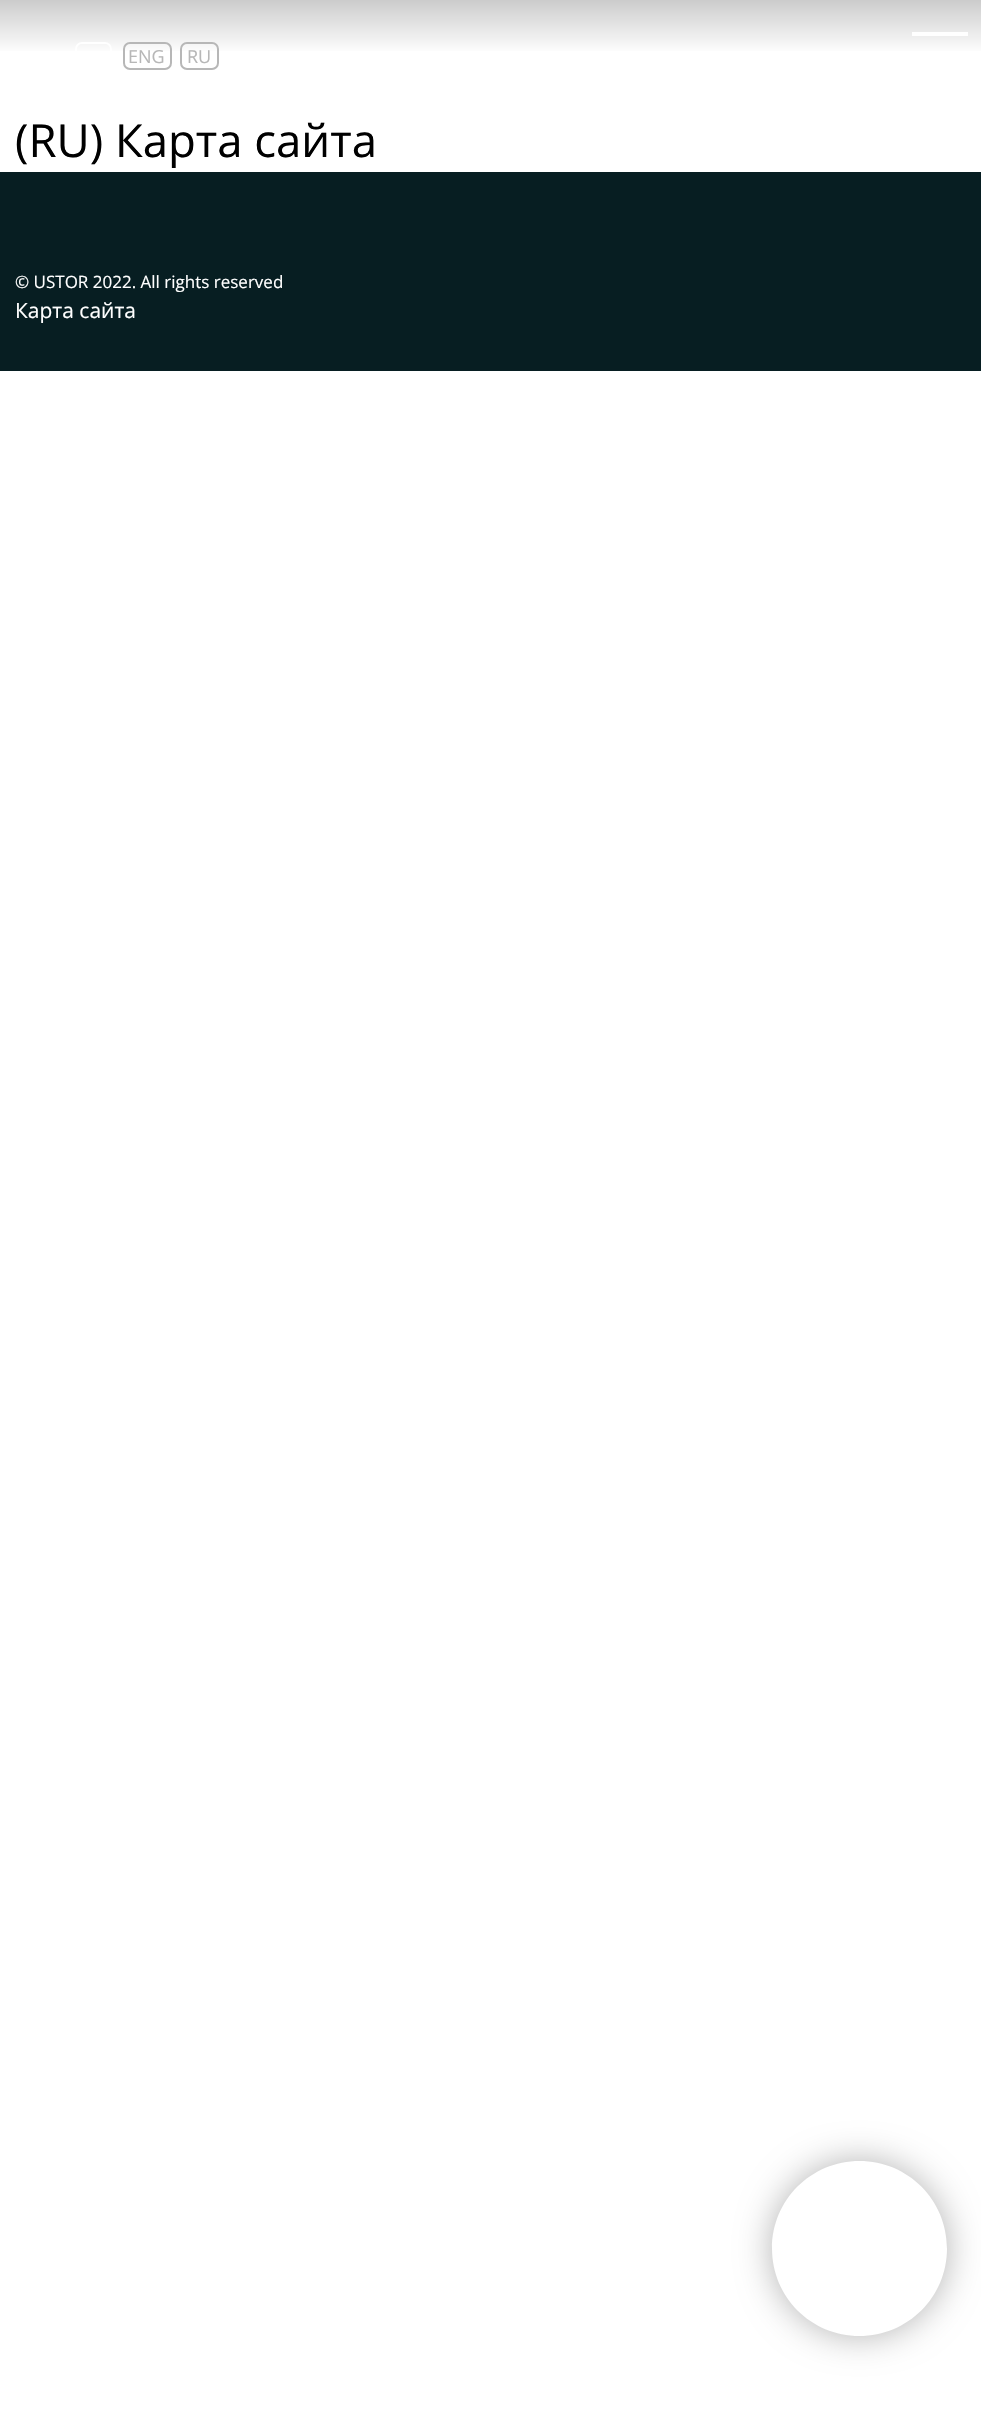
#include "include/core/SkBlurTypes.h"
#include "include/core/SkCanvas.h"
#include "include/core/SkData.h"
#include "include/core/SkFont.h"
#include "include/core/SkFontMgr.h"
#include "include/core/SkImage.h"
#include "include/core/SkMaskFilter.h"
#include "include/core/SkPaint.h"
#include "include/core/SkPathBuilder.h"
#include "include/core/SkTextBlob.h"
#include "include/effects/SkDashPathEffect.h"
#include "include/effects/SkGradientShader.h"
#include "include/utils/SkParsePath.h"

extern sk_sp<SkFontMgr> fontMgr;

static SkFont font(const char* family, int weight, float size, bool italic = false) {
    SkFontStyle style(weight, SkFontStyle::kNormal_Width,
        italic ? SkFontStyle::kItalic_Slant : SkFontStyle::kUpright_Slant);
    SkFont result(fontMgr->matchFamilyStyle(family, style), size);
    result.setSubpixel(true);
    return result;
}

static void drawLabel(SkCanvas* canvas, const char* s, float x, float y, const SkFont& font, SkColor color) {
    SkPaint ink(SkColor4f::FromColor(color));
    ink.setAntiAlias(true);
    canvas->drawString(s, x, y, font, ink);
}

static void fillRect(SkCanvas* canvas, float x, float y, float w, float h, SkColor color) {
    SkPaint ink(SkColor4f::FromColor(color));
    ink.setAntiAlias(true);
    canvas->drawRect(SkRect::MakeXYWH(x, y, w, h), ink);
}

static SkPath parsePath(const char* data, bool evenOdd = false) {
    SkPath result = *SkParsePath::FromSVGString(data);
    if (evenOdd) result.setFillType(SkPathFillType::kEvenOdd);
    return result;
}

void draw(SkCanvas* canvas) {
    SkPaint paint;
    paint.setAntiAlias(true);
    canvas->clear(0xFFFFFFFF);
    {
        const SkColor colors[] = {0xFFCCCCCC, 0xFFFFFFFF};
        const float stops[] = {0, 1};
        const SkPoint ends[] = {{491, 0}, {491, 54}};
        paint.setShader(SkGradientShader::MakeLinear(ends, colors, stops, 2, SkTileMode::kClamp));
        paint.setAlpha(255);
    }
    canvas->drawRect(SkRect::MakeXYWH(0, 0, 981, 51), paint);
    fillRect(canvas, 912, 32, 56, 4, 0xFFFFFFFF);
    paint.setStroke(true);
    paint.setStrokeWidth(2);
    paint.setShader(nullptr);
    paint.setColor(0xFFFFFFFF);
    canvas->drawRoundRect(SkRect::MakeXYWH(76, 43, 35, 26), 6, 6, paint);
    paint.setColor(0xFFB7B7B7);
    canvas->drawRoundRect(SkRect::MakeXYWH(124, 43, 47, 26), 6, 6, paint);
    SkFont font1 = font("Open Sans", 400, 18);
    drawLabel(canvas, "ENG", 128, 63, font1, 0xFFB7B7B7);
    canvas->drawRoundRect(SkRect::MakeXYWH(181, 43, 37, 26), 6, 6, paint);
    drawLabel(canvas, "RU", 187, 63, font1, 0xFFB7B7B7);
    SkFont font2 = font("Open Sans", 400, 45.5f);
    drawLabel(canvas, "(RU) Карта сайта", 15, 157, font2, 0xFF000000);
    fillRect(canvas, 0, 172, 981, 199, 0xFF071E22);
    SkFont font3 = font("Open Sans", 400, 17);
    drawLabel(canvas, "© USTOR 2022. All rights reserved", 15, 288, font3, 0xFFFFFFFF);
    SkFont font4 = font("Open Sans", 400, 21);
    drawLabel(canvas, "Карта сайта", 15, 318, font4, 0xFFFFFFFF);
    canvas->save();
    canvas->clipPath(parsePath("M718 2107H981V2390H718ZM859.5 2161C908 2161 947 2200 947 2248.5C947 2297 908 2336 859.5 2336C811 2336 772 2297 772 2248.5C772 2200 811 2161 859.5 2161Z", true), true);
    paint.setStroke(false);
    paint.setColor(0x4D000000);
    paint.setMaskFilter(SkMaskFilter::MakeBlur(kNormal_SkBlurStyle, 17.5f));
    canvas->drawRoundRect(SkRect::MakeXYWH(772, 2161, 175, 175), 87.5f, 87.5f, paint);
    paint.setMaskFilter(nullptr);
    canvas->restore();
}
